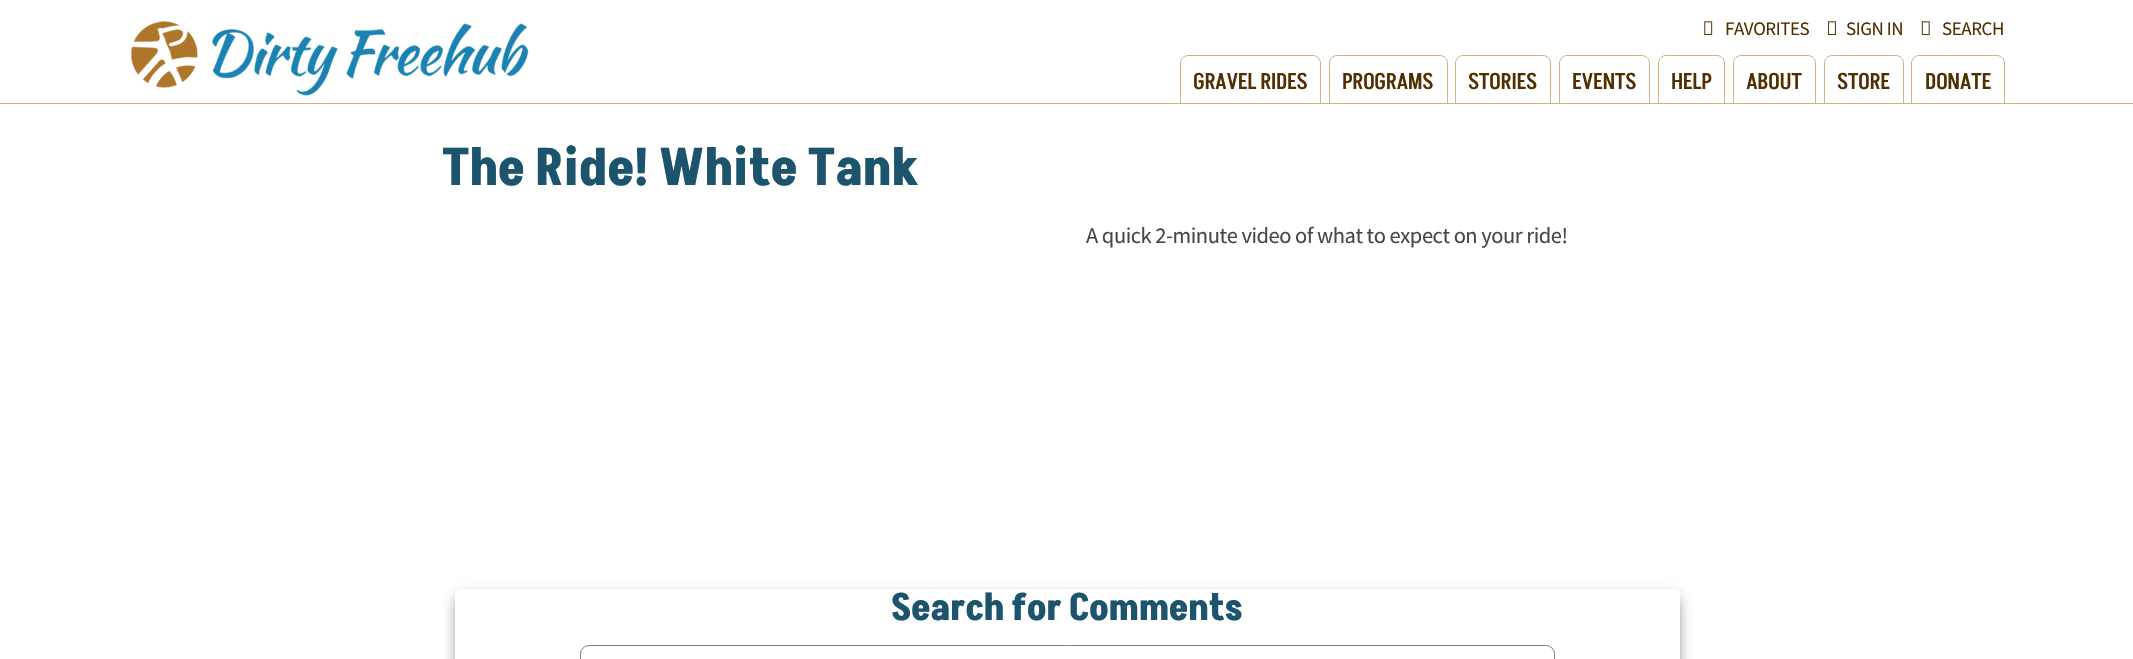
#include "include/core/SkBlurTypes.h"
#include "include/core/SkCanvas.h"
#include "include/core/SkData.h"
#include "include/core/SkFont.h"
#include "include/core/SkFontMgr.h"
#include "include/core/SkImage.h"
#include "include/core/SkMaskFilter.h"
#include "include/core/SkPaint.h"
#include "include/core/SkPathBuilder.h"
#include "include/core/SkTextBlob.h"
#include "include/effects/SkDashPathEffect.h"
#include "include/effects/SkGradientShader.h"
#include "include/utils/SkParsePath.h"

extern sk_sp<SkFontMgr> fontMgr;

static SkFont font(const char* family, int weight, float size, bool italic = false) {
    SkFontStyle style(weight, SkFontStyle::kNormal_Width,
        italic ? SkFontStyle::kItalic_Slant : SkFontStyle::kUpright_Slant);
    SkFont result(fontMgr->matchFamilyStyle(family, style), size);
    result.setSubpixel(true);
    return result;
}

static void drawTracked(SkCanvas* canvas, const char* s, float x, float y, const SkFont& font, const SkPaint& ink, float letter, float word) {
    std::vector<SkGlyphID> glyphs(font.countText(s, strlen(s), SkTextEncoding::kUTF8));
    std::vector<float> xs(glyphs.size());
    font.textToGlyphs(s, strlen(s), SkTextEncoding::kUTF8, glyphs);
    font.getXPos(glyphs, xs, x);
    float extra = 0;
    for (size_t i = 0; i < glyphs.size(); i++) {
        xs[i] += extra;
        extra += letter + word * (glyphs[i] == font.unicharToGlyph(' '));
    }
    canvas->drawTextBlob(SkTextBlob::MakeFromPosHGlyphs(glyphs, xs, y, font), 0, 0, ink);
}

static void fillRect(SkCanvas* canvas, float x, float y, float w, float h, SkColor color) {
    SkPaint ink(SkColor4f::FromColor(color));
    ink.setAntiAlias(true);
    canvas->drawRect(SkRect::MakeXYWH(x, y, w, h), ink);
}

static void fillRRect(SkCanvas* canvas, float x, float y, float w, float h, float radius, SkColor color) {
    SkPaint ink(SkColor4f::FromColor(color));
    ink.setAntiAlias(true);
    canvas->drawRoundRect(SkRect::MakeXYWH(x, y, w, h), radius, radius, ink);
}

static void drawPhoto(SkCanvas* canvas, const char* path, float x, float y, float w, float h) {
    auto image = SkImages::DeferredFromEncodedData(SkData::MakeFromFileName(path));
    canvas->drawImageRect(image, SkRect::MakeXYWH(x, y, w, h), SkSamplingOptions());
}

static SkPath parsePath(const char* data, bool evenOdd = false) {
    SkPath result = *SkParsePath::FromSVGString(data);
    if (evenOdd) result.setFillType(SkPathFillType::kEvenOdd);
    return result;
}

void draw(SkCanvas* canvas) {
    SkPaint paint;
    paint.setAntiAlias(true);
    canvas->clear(0xFFFFFFFF);
    fillRect(canvas, 0, 103, 2133, 1, 0xFFD2B184);
    drawPhoto(canvas, "assets/img1.png", 131, 21, 398, 75);
    drawPhoto(canvas, "assets/img2.png", 1704, 21, 9, 14);
    SkFont font1 = font("Source Sans Pro", 400, 19);
    paint.setColor(0xFF512F01);
    drawTracked(canvas, "FAVORITES", 1725, 35, font1, paint, -0.45f, 0);
    drawPhoto(canvas, "assets/img3.png", 1828, 21, 8, 14);
    drawTracked(canvas, "SIGN IN", 1846, 35, font1, paint, -0.45f, 0);
    drawPhoto(canvas, "assets/img4.png", 1921, 21, 9, 14);
    drawTracked(canvas, "SEARCH", 1942, 35, font1, paint, -0.45f, 0);
    paint.setColor(0xFFFFFFFF);
    canvas->drawPath(parsePath("M1188 55.5H1313C1317 55.5 1320.5 59 1320.5 63V103.5H1180.5V63C1180.5 59 1184 55.5 1188 55.5Z"), paint);
    paint.setStroke(true);
    paint.setStrokeWidth(1);
    paint.setColor(0xFFD2B184);
    canvas->drawPath(parsePath("M1188 55.5H1313C1317 55.5 1320.5 59 1320.5 63V103.5H1180.5V63C1180.5 59 1184 55.5 1188 55.5Z"), paint);
    SkFont font2 = font("Akshar", 500, 22.5f);
    paint.setStroke(false);
    paint.setColor(0xFF512F01);
    drawTracked(canvas, "GRAVEL RIDES", 1193, 89, font2, paint, -0.45f, 0);
    paint.setColor(0xFFFFFFFF);
    canvas->drawPath(parsePath("M1337 55.5H1440C1444 55.5 1447.5 59 1447.5 63V103.5H1329.5V63C1329.5 59 1333 55.5 1337 55.5Z"), paint);
    paint.setStroke(true);
    paint.setColor(0xFFD2B184);
    canvas->drawPath(parsePath("M1337 55.5H1440C1444 55.5 1447.5 59 1447.5 63V103.5H1329.5V63C1329.5 59 1333 55.5 1337 55.5Z"), paint);
    paint.setStroke(false);
    paint.setColor(0xFF512F01);
    drawTracked(canvas, "PROGRAMS", 1342, 89, font2, paint, -0.45f, 0);
    paint.setColor(0xFFFFFFFF);
    canvas->drawPath(parsePath("M1463 55.5H1543C1547 55.5 1550.5 59 1550.5 63V103.5H1455.5V63C1455.5 59 1459 55.5 1463 55.5Z"), paint);
    paint.setStroke(true);
    paint.setColor(0xFFD2B184);
    canvas->drawPath(parsePath("M1463 55.5H1543C1547 55.5 1550.5 59 1550.5 63V103.5H1455.5V63C1455.5 59 1459 55.5 1463 55.5Z"), paint);
    paint.setStroke(false);
    paint.setColor(0xFF512F01);
    drawTracked(canvas, "STORIES", 1468, 89, font2, paint, -0.45f, 0);
    paint.setColor(0xFFFFFFFF);
    canvas->drawPath(parsePath("M1567 55.5H1642C1646 55.5 1649.5 59 1649.5 63V103.5H1559.5V63C1559.5 59 1563 55.5 1567 55.5Z"), paint);
    paint.setStroke(true);
    paint.setColor(0xFFD2B184);
    canvas->drawPath(parsePath("M1567 55.5H1642C1646 55.5 1649.5 59 1649.5 63V103.5H1559.5V63C1559.5 59 1563 55.5 1567 55.5Z"), paint);
    paint.setStroke(false);
    paint.setColor(0xFF512F01);
    drawTracked(canvas, "EVENTS", 1572, 89, font2, paint, -0.45f, 0);
    paint.setColor(0xFFFFFFFF);
    canvas->drawPath(parsePath("M1666 55.5H1717C1721 55.5 1724.5 59 1724.5 63V103.5H1658.5V63C1658.5 59 1662 55.5 1666 55.5Z"), paint);
    paint.setStroke(true);
    paint.setColor(0xFFD2B184);
    canvas->drawPath(parsePath("M1666 55.5H1717C1721 55.5 1724.5 59 1724.5 63V103.5H1658.5V63C1658.5 59 1662 55.5 1666 55.5Z"), paint);
    paint.setStroke(false);
    paint.setColor(0xFF512F01);
    drawTracked(canvas, "HELP", 1671, 89, font2, paint, -0.45f, 0);
    paint.setColor(0xFFFFFFFF);
    canvas->drawPath(parsePath("M1741 55.5H1808C1812 55.5 1815.5 59 1815.5 63V103.5H1733.5V63C1733.5 59 1737 55.5 1741 55.5Z"), paint);
    paint.setStroke(true);
    paint.setColor(0xFFD2B184);
    canvas->drawPath(parsePath("M1741 55.5H1808C1812 55.5 1815.5 59 1815.5 63V103.5H1733.5V63C1733.5 59 1737 55.5 1741 55.5Z"), paint);
    paint.setStroke(false);
    paint.setColor(0xFF512F01);
    drawTracked(canvas, "ABOUT", 1746, 89, font2, paint, -0.45f, 0);
    paint.setColor(0xFFFFFFFF);
    canvas->drawPath(parsePath("M1832 55.5H1896C1900 55.5 1903.5 59 1903.5 63V103.5H1824.5V63C1824.5 59 1828 55.5 1832 55.5Z"), paint);
    paint.setStroke(true);
    paint.setColor(0xFFD2B184);
    canvas->drawPath(parsePath("M1832 55.5H1896C1900 55.5 1903.5 59 1903.5 63V103.5H1824.5V63C1824.5 59 1828 55.5 1832 55.5Z"), paint);
    paint.setStroke(false);
    paint.setColor(0xFF512F01);
    drawTracked(canvas, "STORE", 1837, 89, font2, paint, -0.45f, 0);
    paint.setColor(0xFFFFFFFF);
    canvas->drawPath(parsePath("M1919 55.5H1997C2001 55.5 2004.5 59 2004.5 63V103.5H1911.5V63C1911.5 59 1915 55.5 1919 55.5Z"), paint);
    paint.setStroke(true);
    paint.setColor(0xFFD2B184);
    canvas->drawPath(parsePath("M1919 55.5H1997C2001 55.5 2004.5 59 2004.5 63V103.5H1911.5V63C1911.5 59 1915 55.5 1919 55.5Z"), paint);
    paint.setStroke(false);
    paint.setColor(0xFF512F01);
    drawTracked(canvas, "DONATE", 1925, 89, font2, paint, -0.45f, 0);
    SkFont font3 = font("Akshar", 700, 51.75f);
    paint.setColor(0xFF1D546D);
    drawTracked(canvas, "The Ride! White Tank", 442, 185, font3, paint, -0.45f, 0);
    SkFont font4 = font("Source Sans Pro", 400, 22.5f);
    paint.setColor(0xFF464646);
    drawTracked(canvas, "A quick 2-minute video of what to expect on your ride!", 1086, 243, font4, paint, -0.45f, 0);
    paint.setColor(0x33000000);
    paint.setMaskFilter(SkMaskFilter::MakeBlur(kNormal_SkBlurStyle, 6));
    canvas->drawRoundRect(SkRect::MakeXYWH(455, 593, 1225, 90), 6, 6, paint);
    paint.setMaskFilter(nullptr);
    paint.setMaskFilter(SkMaskFilter::MakeBlur(kNormal_SkBlurStyle, 6));
    canvas->drawRoundRect(SkRect::MakeXYWH(455, 601, 1225, 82), 6, 6, paint);
    paint.setMaskFilter(nullptr);
    fillRRect(canvas, 455, 589, 1225, 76, 6, 0xFFFFFFFF);
    SkFont font5 = font("Akshar", 700, 37.4f);
    paint.setColor(0xFF1D546D);
    drawTracked(canvas, "Search for Comments", 891, 620, font5, paint, -0.45f, 0);
    paint.setStroke(true);
    paint.setColor(0xFF808080);
    canvas->drawRoundRect(SkRect::MakeXYWH(580.5f, 645.5f, 974, 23), 8.5f, 8.5f, paint);
}
